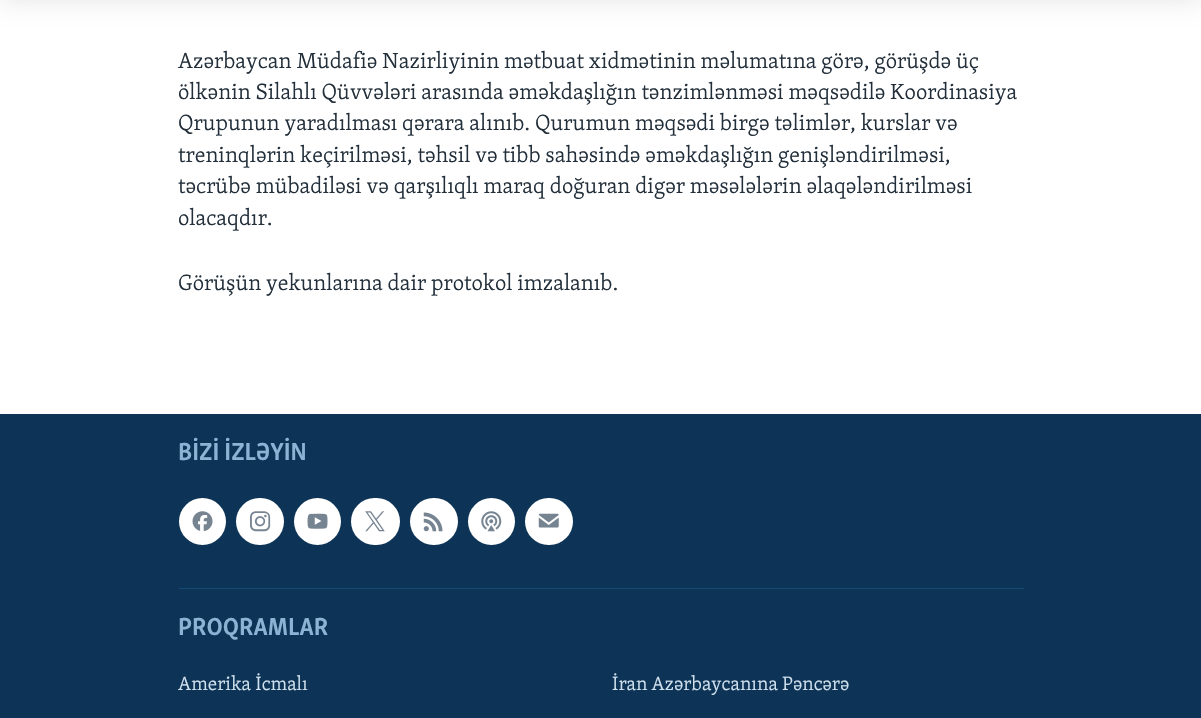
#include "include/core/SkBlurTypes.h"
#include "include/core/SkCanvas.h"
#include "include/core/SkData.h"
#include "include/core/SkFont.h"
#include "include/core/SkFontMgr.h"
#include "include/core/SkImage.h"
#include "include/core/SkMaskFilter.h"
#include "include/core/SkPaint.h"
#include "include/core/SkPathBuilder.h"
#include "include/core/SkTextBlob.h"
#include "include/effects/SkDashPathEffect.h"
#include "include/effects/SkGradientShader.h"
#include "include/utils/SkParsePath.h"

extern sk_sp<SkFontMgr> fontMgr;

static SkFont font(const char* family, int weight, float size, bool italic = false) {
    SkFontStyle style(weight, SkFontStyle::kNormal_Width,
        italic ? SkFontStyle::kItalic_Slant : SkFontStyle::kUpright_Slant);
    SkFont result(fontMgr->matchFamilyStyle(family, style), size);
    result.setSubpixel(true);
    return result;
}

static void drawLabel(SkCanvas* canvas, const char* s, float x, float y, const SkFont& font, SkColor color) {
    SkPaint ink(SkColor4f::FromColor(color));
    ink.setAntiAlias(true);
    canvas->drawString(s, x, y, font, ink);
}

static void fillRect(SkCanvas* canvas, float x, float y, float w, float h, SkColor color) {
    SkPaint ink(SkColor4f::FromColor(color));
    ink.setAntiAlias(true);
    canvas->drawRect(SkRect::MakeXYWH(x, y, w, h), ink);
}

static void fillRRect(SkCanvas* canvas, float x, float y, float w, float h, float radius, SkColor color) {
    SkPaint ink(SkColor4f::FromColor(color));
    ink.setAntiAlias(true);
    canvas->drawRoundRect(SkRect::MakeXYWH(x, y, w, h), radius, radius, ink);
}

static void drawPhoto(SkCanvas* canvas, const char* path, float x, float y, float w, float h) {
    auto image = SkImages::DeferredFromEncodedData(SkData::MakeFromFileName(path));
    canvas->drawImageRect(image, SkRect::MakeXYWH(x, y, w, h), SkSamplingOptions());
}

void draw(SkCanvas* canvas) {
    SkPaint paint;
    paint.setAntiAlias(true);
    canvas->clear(0xFFFFFFFF);
    paint.setColor(0x1A000000);
    paint.setMaskFilter(SkMaskFilter::MakeBlur(kNormal_SkBlurStyle, 12.5f));
    canvas->drawRect(SkRect::MakeXYWH(0, -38, 1201, 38), paint);
    paint.setMaskFilter(nullptr);
    SkFont font1 = font("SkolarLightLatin", 300, 22.5f);
    drawLabel(canvas, "Azərbaycan Müdafiə Nazirliyinin mətbuat xidmətinin məlumatına görə, görüşdə üç", 178, 68, font1, 0xFF222F3A);
    drawLabel(canvas, "ölkənin Silahlı Qüvvələri arasında əməkdaşlığın tənzimlənməsi məqsədilə Koordinasiya", 178, 99, font1, 0xFF222F3A);
    drawLabel(canvas, "Qrupunun yaradılması qərara alınıb. Qurumun məqsədi birgə təlimlər, kurslar və", 178, 130, font1, 0xFF222F3A);
    drawLabel(canvas, "treninqlərin keçirilməsi, təhsil və tibb sahəsində əməkdaşlığın genişləndirilməsi,", 178, 162, font1, 0xFF222F3A);
    drawLabel(canvas, "təcrübə mübadiləsi və qarşılıqlı maraq doğuran digər məsələlərin əlaqələndirilməsi", 178, 193, font1, 0xFF222F3A);
    drawLabel(canvas, "olacaqdır.", 178, 225, font1, 0xFF222F3A);
    drawLabel(canvas, "Görüşün yekunlarına dair protokol imzalanıb.", 178, 290, font1, 0xFF222F3A);
    fillRect(canvas, 0, 414, 1201, 304, 0xFF0D3456);
    SkFont font2 = font("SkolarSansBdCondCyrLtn", 700, 25.25f);
    drawLabel(canvas, "BİZİ İZLƏYİN", 178, 460, font2, 0xFF8DB3D4);
    paint.setColor(0xFFFFFFFF);
    canvas->drawCircle(202.5f, 521.5f, 23.5f, paint);
    drawPhoto(canvas, "assets/img1.png", 192, 511, 21, 21);
    fillRRect(canvas, 236, 498, 48, 47, 23.5f, 0xFFFFFFFF);
    drawPhoto(canvas, "assets/img2.png", 250, 511, 21, 21);
    canvas->drawCircle(317.5f, 521.5f, 23.5f, paint);
    drawPhoto(canvas, "assets/img3.png", 307, 513, 21, 16);
    fillRRect(canvas, 351, 498, 49, 47, 23.5f, 0xFFFFFFFF);
    drawPhoto(canvas, "assets/img4.png", 365, 511, 20, 21);
    fillRRect(canvas, 410, 498, 48, 47, 23.5f, 0xFFFFFFFF);
    drawPhoto(canvas, "assets/img5.png", 423, 512, 20, 20);
    canvas->drawCircle(491.5f, 521.5f, 23.5f, paint);
    drawPhoto(canvas, "assets/img6.png", 481, 511, 21, 21);
    fillRRect(canvas, 525, 498, 48, 47, 23.5f, 0xFFFFFFFF);
    drawPhoto(canvas, "assets/img7.png", 538, 513, 21, 15);
    fillRect(canvas, 179, 588, 845, 1, 0xFF134976);
    drawLabel(canvas, "PROQRAMLAR", 178, 635, font2, 0xFF8DB3D4);
    SkFont font3 = font("SkolarLightLatin", 300, 19.75f);
    drawLabel(canvas, "Amerika İcmalı", 178, 690, font3, 0xFFD1E1EE);
    drawLabel(canvas, "İran Azərbaycanına Pəncərə", 612, 690, font3, 0xFFD1E1EE);
}
